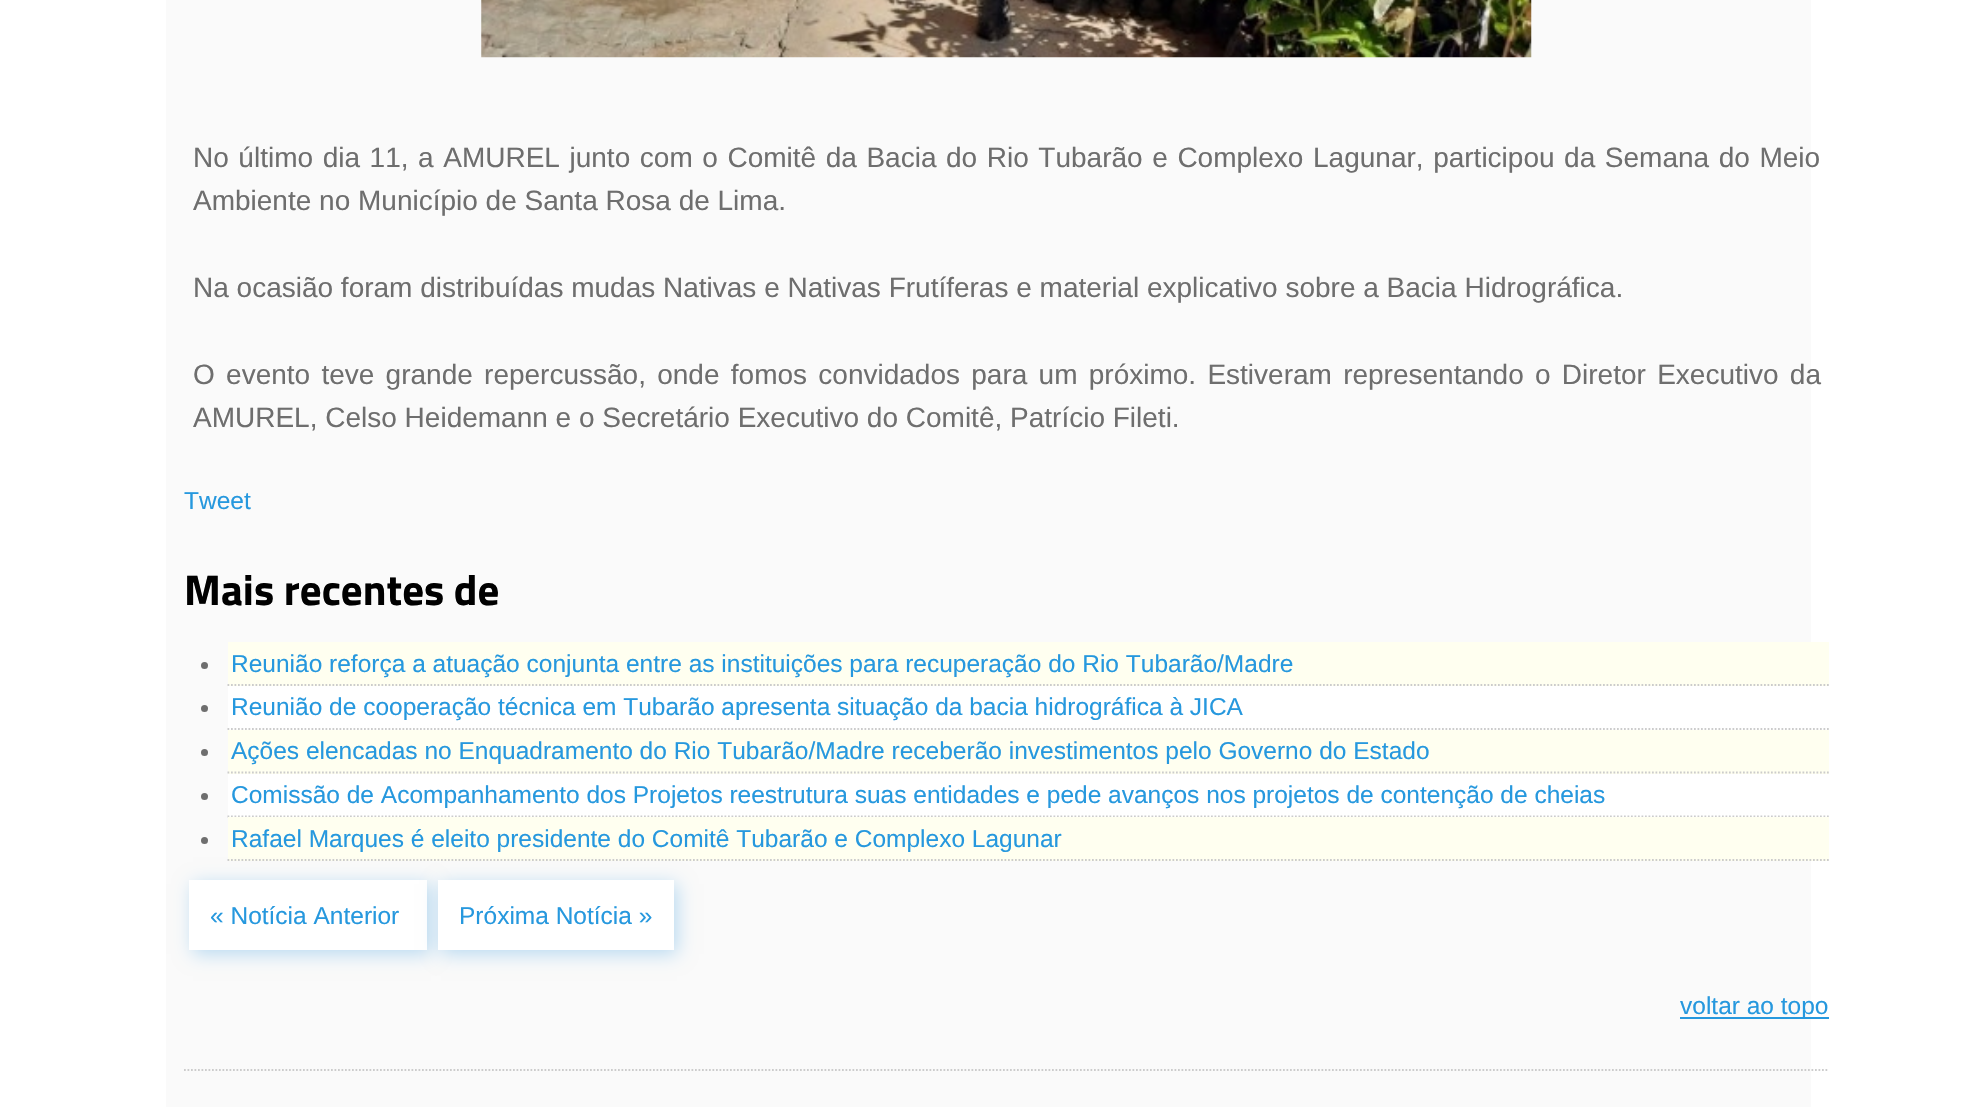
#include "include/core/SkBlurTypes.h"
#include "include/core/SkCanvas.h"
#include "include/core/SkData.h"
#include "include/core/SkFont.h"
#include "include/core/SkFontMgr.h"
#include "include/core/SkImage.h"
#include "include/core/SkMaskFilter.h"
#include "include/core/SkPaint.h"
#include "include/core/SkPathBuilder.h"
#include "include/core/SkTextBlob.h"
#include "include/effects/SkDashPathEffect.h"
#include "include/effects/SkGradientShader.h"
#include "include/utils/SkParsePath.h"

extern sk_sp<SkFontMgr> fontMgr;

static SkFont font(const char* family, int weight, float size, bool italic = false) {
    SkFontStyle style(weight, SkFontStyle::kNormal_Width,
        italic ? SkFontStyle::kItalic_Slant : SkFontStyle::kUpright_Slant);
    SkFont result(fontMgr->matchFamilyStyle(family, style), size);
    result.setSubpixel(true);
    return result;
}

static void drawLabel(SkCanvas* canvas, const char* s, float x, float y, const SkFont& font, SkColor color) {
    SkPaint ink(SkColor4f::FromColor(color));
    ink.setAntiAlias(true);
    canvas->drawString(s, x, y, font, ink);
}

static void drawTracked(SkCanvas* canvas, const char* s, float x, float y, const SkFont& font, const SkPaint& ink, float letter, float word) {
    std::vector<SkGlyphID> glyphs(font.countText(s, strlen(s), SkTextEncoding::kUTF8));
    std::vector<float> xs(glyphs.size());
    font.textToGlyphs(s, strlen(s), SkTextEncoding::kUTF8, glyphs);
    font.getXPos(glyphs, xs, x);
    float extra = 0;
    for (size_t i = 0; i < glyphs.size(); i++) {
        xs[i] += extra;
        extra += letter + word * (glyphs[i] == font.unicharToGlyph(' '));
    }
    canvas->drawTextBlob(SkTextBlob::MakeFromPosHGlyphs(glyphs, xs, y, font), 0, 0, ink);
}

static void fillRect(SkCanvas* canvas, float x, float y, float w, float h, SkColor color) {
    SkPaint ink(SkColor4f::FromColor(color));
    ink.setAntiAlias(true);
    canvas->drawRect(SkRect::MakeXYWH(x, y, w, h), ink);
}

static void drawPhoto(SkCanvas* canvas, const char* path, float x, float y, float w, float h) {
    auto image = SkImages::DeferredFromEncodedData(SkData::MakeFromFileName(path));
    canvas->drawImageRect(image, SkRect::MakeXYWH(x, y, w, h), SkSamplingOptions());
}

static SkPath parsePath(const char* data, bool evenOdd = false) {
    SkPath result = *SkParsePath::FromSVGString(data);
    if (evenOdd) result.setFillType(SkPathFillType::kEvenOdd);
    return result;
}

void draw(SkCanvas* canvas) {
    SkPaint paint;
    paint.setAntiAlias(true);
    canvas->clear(0xFFFFFFFF);
    fillRect(canvas, 166, 0, 1645, 1107, 0xFFFAFAFA);
    paint.setStroke(true);
    paint.setStrokeWidth(1.8f);
    paint.setColor(0xFFCCCCCC);
    paint.setPathEffect(SkDashPathEffect::Make({{1.75f, 1.75f}}, 0));
    canvas->drawPath(parsePath("M184 1070H1829"), paint);
    paint.setPathEffect(nullptr);
    drawPhoto(canvas, "assets/img1.png", 481, 0, 1051, 58);
    SkFont font1 = font("Liberation Sans", 400, 28);
    paint.setStroke(false);
    paint.setColor(0xFF6E6E6E);
    drawTracked(canvas, "No último dia 11, a AMUREL junto com o Comitê da Bacia do Rio Tubarão e Complexo Lagunar, participou da Semana do Meio", 193, 167, font1, paint, 0, 1.8f);
    drawLabel(canvas, "Ambiente no Município de Santa Rosa de Lima.", 193, 210, font1, 0xFF6E6E6E);
    drawLabel(canvas, "Na ocasião foram distribuídas mudas Nativas e Nativas Frutíferas e material explicativo sobre a Bacia Hidrográfica.", 193, 297, font1, 0xFF6E6E6E);
    drawTracked(canvas, "O evento teve grande repercussão, onde fomos convidados para um próximo. Estiveram representando o Diretor Executivo da", 193, 384, font1, paint, 0, 3.5f);
    drawLabel(canvas, "AMUREL, Celso Heidemann e o Secretário Executivo do Comitê, Patrício Fileti.", 193, 427, font1, 0xFF6E6E6E);
    SkFont font2 = font("Liberation Sans", 400, 24.5f);
    drawLabel(canvas, "Tweet", 184, 509, font2, 0xFF2698DE);
    SkFont font3 = font("Titillium Web", 700, 43);
    drawLabel(canvas, "Mais recentes de", 184, 605, font3, 0xFF000000);
    fillRect(canvas, 228, 642, 1601, 44, 0xFFFFFFF0);
    paint.setStroke(true);
    paint.setColor(0xFFCCCCCC);
    paint.setPathEffect(SkDashPathEffect::Make({{1.75f, 1.75f}}, 0));
    canvas->drawPath(parsePath("M227.5 685H1829"), paint);
    paint.setPathEffect(nullptr);
    paint.setStroke(false);
    paint.setColor(0xFF6E6E6E);
    canvas->drawCircle(204.5f, 665.5f, 3.5f, paint);
    drawLabel(canvas, "Reunião reforça a atuação conjunta entre as instituições para recuperação do Rio Tubarão/Madre", 231, 672, font2, 0xFF2698DE);
    fillRect(canvas, 228, 686, 1583, 44, 0xFFFFFFFF);
    paint.setStroke(true);
    paint.setColor(0xFFCCCCCC);
    paint.setPathEffect(SkDashPathEffect::Make({{1.75f, 1.75f}}, 0));
    canvas->drawPath(parsePath("M227.5 729H1829"), paint);
    paint.setPathEffect(nullptr);
    paint.setStroke(false);
    paint.setColor(0xFF6E6E6E);
    canvas->drawCircle(204.5f, 708.5f, 3.5f, paint);
    drawLabel(canvas, "Reunião de cooperação técnica em Tubarão apresenta situação da bacia hidrográfica à JICA", 231, 715, font2, 0xFF2698DE);
    fillRect(canvas, 228, 730, 1601, 44, 0xFFFFFFF0);
    paint.setStroke(true);
    paint.setColor(0xFFCCCCCC);
    paint.setPathEffect(SkDashPathEffect::Make({{1.75f, 1.75f}}, 0));
    canvas->drawPath(parsePath("M227.5 772.5H1829"), paint);
    paint.setPathEffect(nullptr);
    paint.setStroke(false);
    paint.setColor(0xFF6E6E6E);
    canvas->drawCircle(204.5f, 752.5f, 3.5f, paint);
    drawLabel(canvas, "Ações elencadas no Enquadramento do Rio Tubarão/Madre receberão investimentos pelo Governo do Estado", 231, 759, font2, 0xFF2698DE);
    fillRect(canvas, 228, 774, 1583, 43, 0xFFFFFFFF);
    paint.setStroke(true);
    paint.setColor(0xFFCCCCCC);
    paint.setPathEffect(SkDashPathEffect::Make({{1.75f, 1.75f}}, 0));
    canvas->drawPath(parsePath("M227.5 816.5H1829"), paint);
    paint.setPathEffect(nullptr);
    paint.setStroke(false);
    paint.setColor(0xFF6E6E6E);
    canvas->drawCircle(204.5f, 796.5f, 3.5f, paint);
    drawLabel(canvas, "Comissão de Acompanhamento dos Projetos reestrutura suas entidades e pede avanços nos projetos de contenção de cheias", 231, 803, font2, 0xFF2698DE);
    fillRect(canvas, 228, 817, 1601, 44, 0xFFFFFFF0);
    paint.setStroke(true);
    paint.setColor(0xFFCCCCCC);
    paint.setPathEffect(SkDashPathEffect::Make({{1.75f, 1.75f}}, 0));
    canvas->drawPath(parsePath("M227.5 860H1829"), paint);
    paint.setPathEffect(nullptr);
    paint.setStroke(false);
    paint.setColor(0xFF6E6E6E);
    canvas->drawCircle(204.5f, 840.5f, 3.5f, paint);
    drawLabel(canvas, "Rafael Marques é eleito presidente do Comitê Tubarão e Complexo Lagunar", 231, 847, font2, 0xFF2698DE);
    paint.setColor(0xFFB7D9F1);
    paint.setMaskFilter(SkMaskFilter::MakeBlur(kNormal_SkBlurStyle, 9));
    canvas->drawRect(SkRect::MakeXYWH(193, 884, 238, 70), paint);
    paint.setMaskFilter(nullptr);
    fillRect(canvas, 189, 880, 238, 70, 0xFFFFFFFF);
    drawLabel(canvas, "« Notícia Anterior", 210, 924, font2, 0xFF2698DE);
    paint.setMaskFilter(SkMaskFilter::MakeBlur(kNormal_SkBlurStyle, 9));
    canvas->drawRect(SkRect::MakeXYWH(441, 884, 236, 70), paint);
    paint.setMaskFilter(nullptr);
    fillRect(canvas, 438, 880, 236, 70, 0xFFFFFFFF);
    drawLabel(canvas, "Próxima Notícia »", 459, 924, font2, 0xFF2698DE);
    fillRect(canvas, 1680, 1017, 149, 2, 0xFF2698DE);
    drawLabel(canvas, "voltar ao topo", 1680, 1014, font2, 0xFF2698DE);
}
